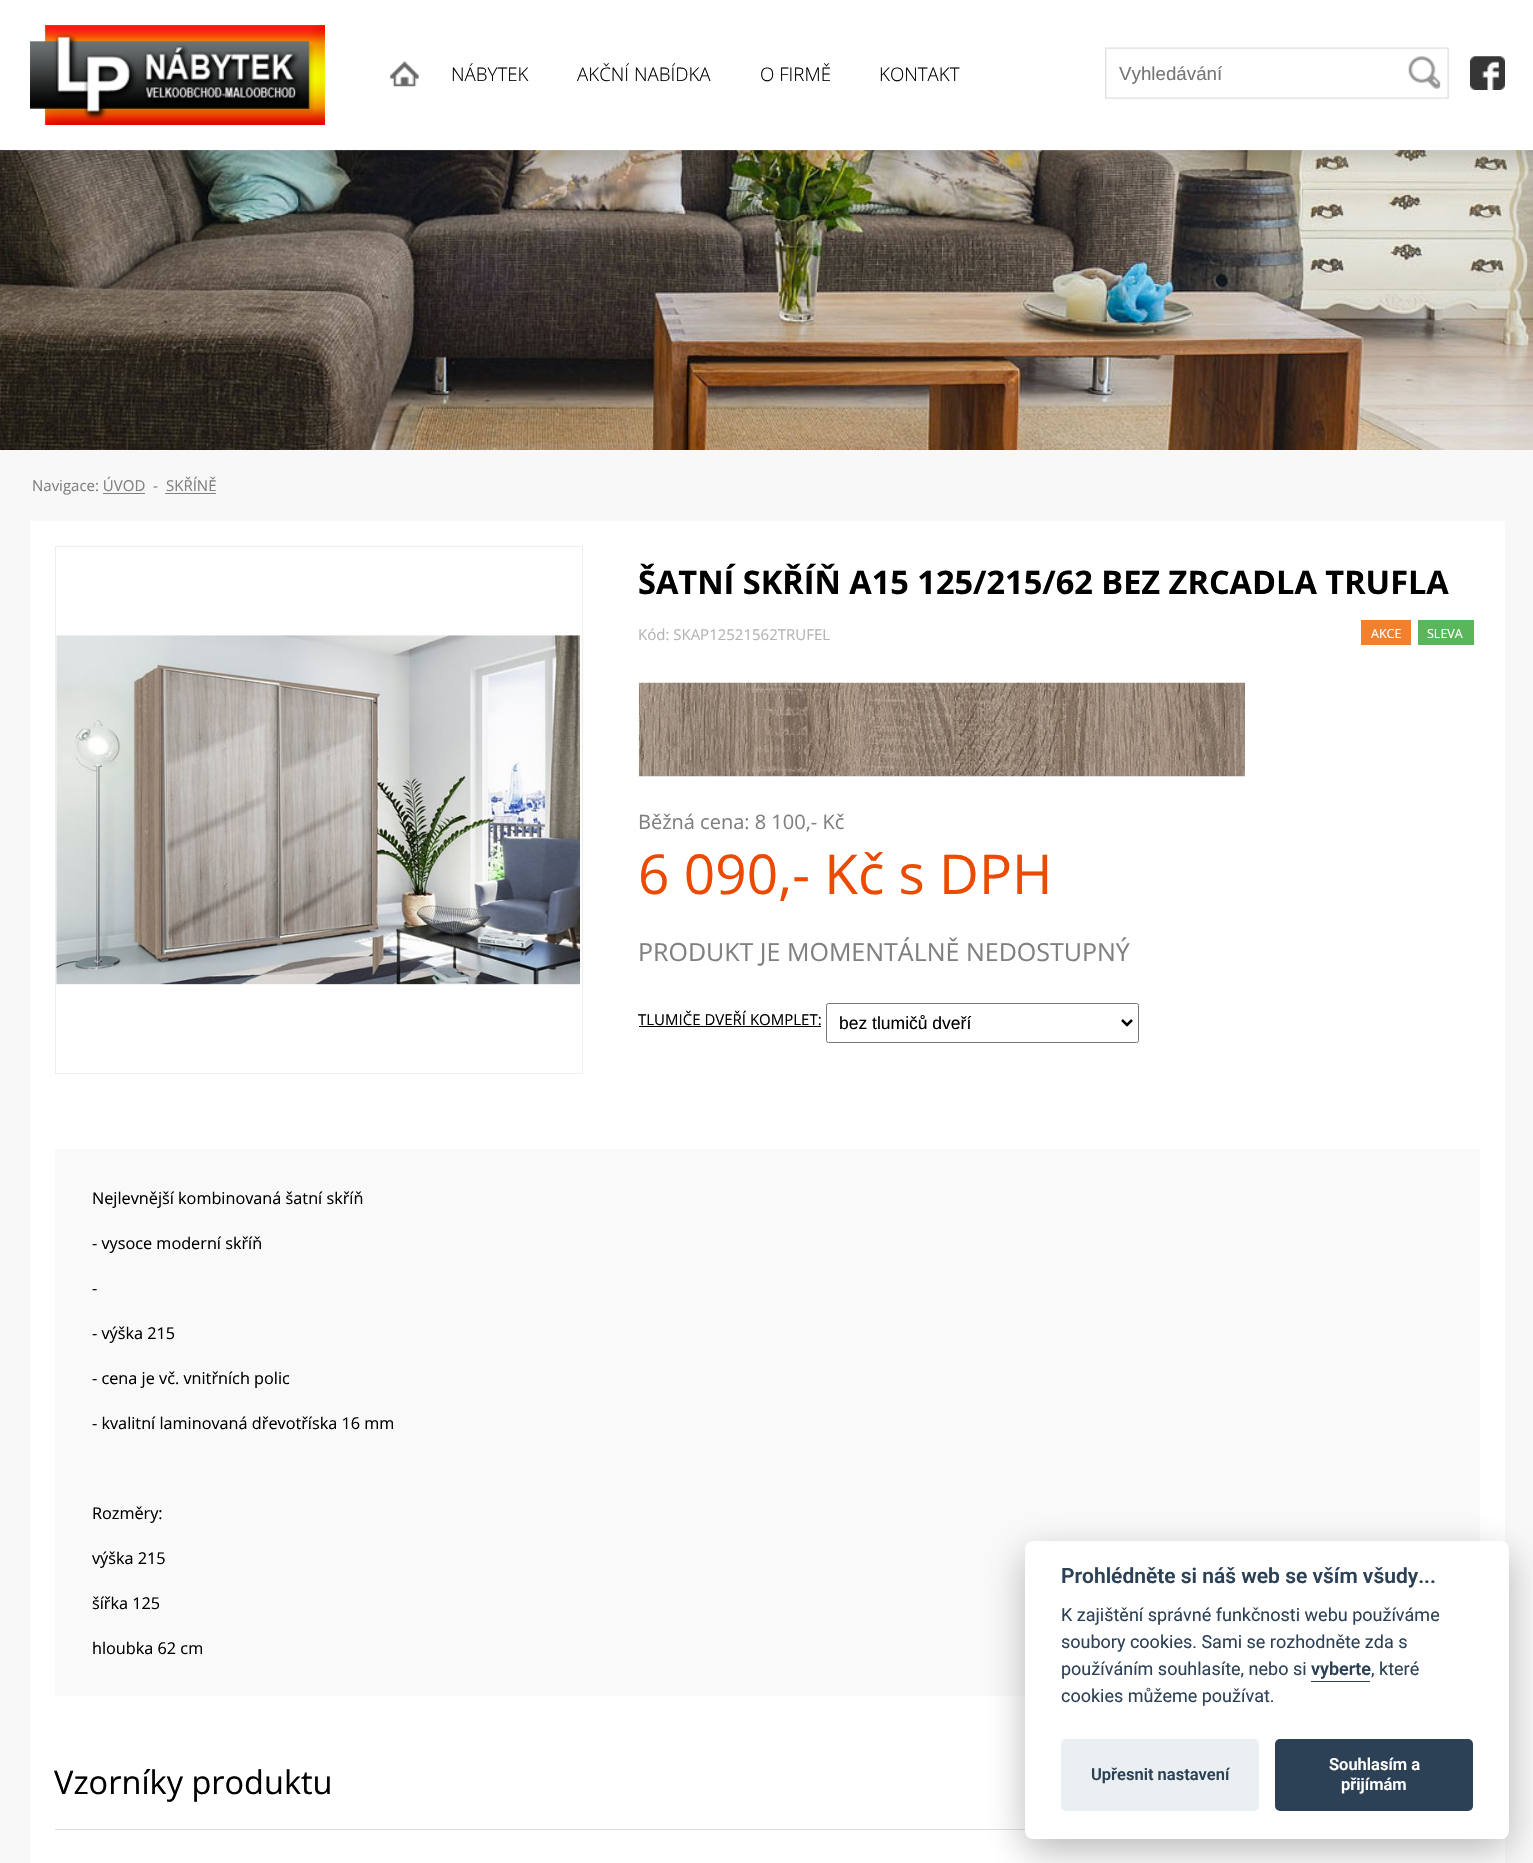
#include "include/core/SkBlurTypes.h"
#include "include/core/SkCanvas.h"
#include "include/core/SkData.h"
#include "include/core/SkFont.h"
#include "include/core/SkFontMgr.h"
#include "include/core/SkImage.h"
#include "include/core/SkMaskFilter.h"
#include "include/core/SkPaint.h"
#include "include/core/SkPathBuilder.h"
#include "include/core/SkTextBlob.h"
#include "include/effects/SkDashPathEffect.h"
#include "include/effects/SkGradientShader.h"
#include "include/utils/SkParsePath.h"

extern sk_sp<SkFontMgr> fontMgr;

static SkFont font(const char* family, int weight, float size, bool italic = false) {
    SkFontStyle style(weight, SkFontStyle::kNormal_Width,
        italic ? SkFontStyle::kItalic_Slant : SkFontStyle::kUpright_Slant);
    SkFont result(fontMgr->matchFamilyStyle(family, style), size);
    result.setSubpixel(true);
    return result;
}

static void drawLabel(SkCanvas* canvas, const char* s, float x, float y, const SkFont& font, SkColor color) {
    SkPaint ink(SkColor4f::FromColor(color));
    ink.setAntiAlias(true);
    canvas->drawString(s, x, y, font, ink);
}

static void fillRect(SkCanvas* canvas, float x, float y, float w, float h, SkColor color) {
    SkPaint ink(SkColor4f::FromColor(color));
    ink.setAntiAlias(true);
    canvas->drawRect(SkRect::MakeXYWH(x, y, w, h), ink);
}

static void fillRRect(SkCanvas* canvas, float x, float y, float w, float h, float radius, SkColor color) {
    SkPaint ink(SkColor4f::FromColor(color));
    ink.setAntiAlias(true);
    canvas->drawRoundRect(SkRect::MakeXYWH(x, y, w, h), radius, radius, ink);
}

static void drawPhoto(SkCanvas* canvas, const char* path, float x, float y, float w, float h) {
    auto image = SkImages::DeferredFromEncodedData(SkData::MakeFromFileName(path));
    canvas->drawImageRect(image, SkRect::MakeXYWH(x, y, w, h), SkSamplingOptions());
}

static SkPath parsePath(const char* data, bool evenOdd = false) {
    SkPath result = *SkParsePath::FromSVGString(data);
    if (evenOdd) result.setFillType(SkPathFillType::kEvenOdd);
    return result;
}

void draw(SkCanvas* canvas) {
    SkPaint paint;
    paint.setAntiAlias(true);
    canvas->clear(0xFFF8F8F8);
    drawPhoto(canvas, "assets/img6.png", 0, 150, 1533, 300);
    drawPhoto(canvas, "assets/img1.png", 0, 0, 1533, 172);
    drawPhoto(canvas, "assets/img2.png", 30, 25, 295, 100);
    drawPhoto(canvas, "assets/img3.png", 390, 61, 29, 26);
    fillRect(canvas, 429, 149, 122, 1, 0xFFFFFFFF);
    SkFont font1 = font("Open Sans", 300, 18.75f);
    drawLabel(canvas, "NÁBYTEK", 451, 81, font1, 0xFF000000);
    fillRect(canvas, 555, 149, 179, 1, 0xFFFFFFFF);
    drawLabel(canvas, "AKČNÍ NABÍDKA", 577, 81, font1, 0xFF000000);
    fillRect(canvas, 738, 149, 115, 1, 0xFFFFFFFF);
    drawLabel(canvas, "O FIRMĚ", 760, 81, font1, 0xFF000000);
    fillRect(canvas, 858, 149, 125, 1, 0xFFFFFFFF);
    drawLabel(canvas, "KONTAKT", 879, 81, font1, 0xFF000000);
    drawPhoto(canvas, "assets/img4.png", 1105, 47, 344, 52);
    SkFont font2 = font("Liberation Sans", 400, 18.75f);
    drawLabel(canvas, "Vyhledávání", 1119, 80, font2, 0xFF757575);
    drawPhoto(canvas, "assets/img5.png", 1470, 56, 35, 34);
    SkFont font3 = font("Open Sans", 400, 15);
    drawLabel(canvas, "Navigace: ÚVOD", 32, 491, font3, 0xFF808080);
    drawLabel(canvas, "-", 153, 491, font3, 0xFF808080);
    drawLabel(canvas, "SKŘÍNĚ", 166, 491, font3, 0xFF808080);
    fillRect(canvas, 165, 493, 51, 1, 0xFF808080);
    fillRect(canvas, 103, 493, 42, 1, 0xFF808080);
    fillRect(canvas, 30, 521, 1475, 1342, 0xFFFFFFFF);
    paint.setStroke(true);
    paint.setStrokeWidth(1);
    paint.setColor(0xFFEEEEEE);
    canvas->drawRect(SkRect::MakeXYWH(55.5f, 546.5f, 527, 527), paint);
    drawPhoto(canvas, "assets/img7.png", 56, 635, 524, 350);
    SkFont font4 = font("Open Sans", 700, 32.5f);
    drawLabel(canvas, "ŠATNÍ SKŘÍŇ A15 125/215/62 BEZ ZRCADLA TRUFLA", 638, 594, font4, 0xFF000000);
    drawLabel(canvas, "Kód: SKAP12521562TRUFEL", 638, 640, font3, 0xFFB4B4B4);
    fillRect(canvas, 1361, 620, 50, 25, 0xFFF2812F);
    SkFont font5 = font("Open Sans", 400, 12.5f);
    drawLabel(canvas, "AKCE", 1371, 638, font5, 0xFFFFFFFF);
    fillRect(canvas, 1418, 620, 56, 25, 0xFF5AB65A);
    drawLabel(canvas, "SLEVA", 1427, 638, font5, 0xFFFFFFFF);
    drawPhoto(canvas, "assets/img8.png", 638, 682, 607, 95);
    SkFont font6 = font("Open Sans", 400, 20);
    drawLabel(canvas, "Běžná cena: 8 100,- Kč", 638, 829, font6, 0xFF808080);
    SkFont font7 = font("Open Sans", 400, 55);
    drawLabel(canvas, "6 090,- Kč s DPH", 638, 894, font7, 0xFFEB4B01);
    SkFont font8 = font("Open Sans", 400, 25);
    drawLabel(canvas, "PRODUKT JE MOMENTÁLNĚ NEDOSTUPNÝ", 638, 961, font8, 0xFF808080);
    drawLabel(canvas, "TLUMIČE DVEŘÍ KOMPLET:", 638, 1025, font3, 0xFF000000);
    fillRect(canvas, 639, 1026, 182, 1, 0xFF000000);
    paint.setColor(0xFF767676);
    canvas->drawRoundRect(SkRect::MakeXYWH(826.5f, 1003.5f, 312, 39), 2, 2, paint);
    paint.setStrokeWidth(2.5f);
    paint.setColor(0xFF000000);
    canvas->drawPath(parsePath("M1122 1020L1127 1025L1132 1020"), paint);
    SkFont font9 = font("Liberation Sans", 400, 17.5f);
    drawLabel(canvas, "bez tlumičů dveří", 839, 1029, font9, 0xFF000000);
    fillRect(canvas, 55, 1149, 1425, 547, 0xFFF9F9F9);
    SkFont font10 = font("Open Sans", 400, 16.25f);
    drawLabel(canvas, "Nejlevnější kombinovaná šatní skříň", 92, 1204, font10, 0xFF000000);
    drawLabel(canvas, "- vysoce moderní skříň", 92, 1249, font10, 0xFF000000);
    drawLabel(canvas, "-", 92, 1294, font10, 0xFF000000);
    drawLabel(canvas, "- výška 215", 92, 1339, font10, 0xFF000000);
    drawLabel(canvas, "- cena je vč. vnitřních polic", 92, 1384, font10, 0xFF000000);
    drawLabel(canvas, "- kvalitní laminovaná dřevotříska 16 mm", 92, 1429, font10, 0xFF000000);
    drawLabel(canvas, "Rozměry:", 92, 1519, font10, 0xFF000000);
    drawLabel(canvas, "výška 215", 92, 1564, font10, 0xFF000000);
    drawLabel(canvas, "šířka 125", 92, 1609, font10, 0xFF000000);
    drawLabel(canvas, "hloubka 62 cm", 92, 1654, font10, 0xFF000000);
    fillRect(canvas, 55, 1829, 970, 1, 0xFFDEDEDE);
    SkFont font11 = font("Open Sans", 400, 32.5f);
    drawLabel(canvas, "Vzorníky produktu", 54, 1794, font11, 0xFF000000);
    paint.setStroke(false);
    paint.setColor(0x47020203);
    paint.setMaskFilter(SkMaskFilter::MakeBlur(kNormal_SkBlurStyle, 19));
    canvas->drawRoundRect(SkRect::MakeXYWH(1025, 1554, 484, 297), 8, 8, paint);
    paint.setMaskFilter(nullptr);
    fillRRect(canvas, 1025, 1541, 484, 298, 8, 0xFFFFFFFF);
    SkFont font12 = font("Roboto", 600, 21);
    drawLabel(canvas, "Prohlédněte si náš web se vším všudy...", 1061, 1583, font12, 0xFF2D4156);
    SkFont font13 = font("Roboto", 400, 18);
    drawLabel(canvas, "K zajištění správné funkčnosti webu používáme", 1061, 1621, font13, 0xFF2D4156);
    drawLabel(canvas, "soubory cookies. Sami se rozhodněte zda s", 1061, 1648, font13, 0xFF2D4156);
    drawLabel(canvas, "používáním souhlasíte, nebo si", 1061, 1675, font13, 0xFF2D4156);
    SkFont font14 = font("Roboto", 600, 18);
    drawLabel(canvas, "vyberte", 1311, 1675, font14, 0xFF2D4156);
    fillRect(canvas, 1311, 1681, 59, 1, 0xFF2D4156);
    drawLabel(canvas, ", které", 1371, 1675, font13, 0xFF2D4156);
    drawLabel(canvas, "cookies můžeme používat.", 1061, 1702, font13, 0xFF2D4156);
    fillRRect(canvas, 1061, 1739, 198, 72, 5, 0xFFEAEFF2);
    SkFont font15 = font("Roboto", 600, 16.5f);
    drawLabel(canvas, "Upřesnit nastavení", 1091, 1780, font15, 0xFF2D4156);
    fillRRect(canvas, 1275, 1739, 198, 72, 5, 0xFF2D4156);
    drawLabel(canvas, "Souhlasím a", 1329, 1770, font15, 0xFFFFFFFF);
    drawLabel(canvas, "přijímám", 1341, 1790, font15, 0xFFFFFFFF);
}
